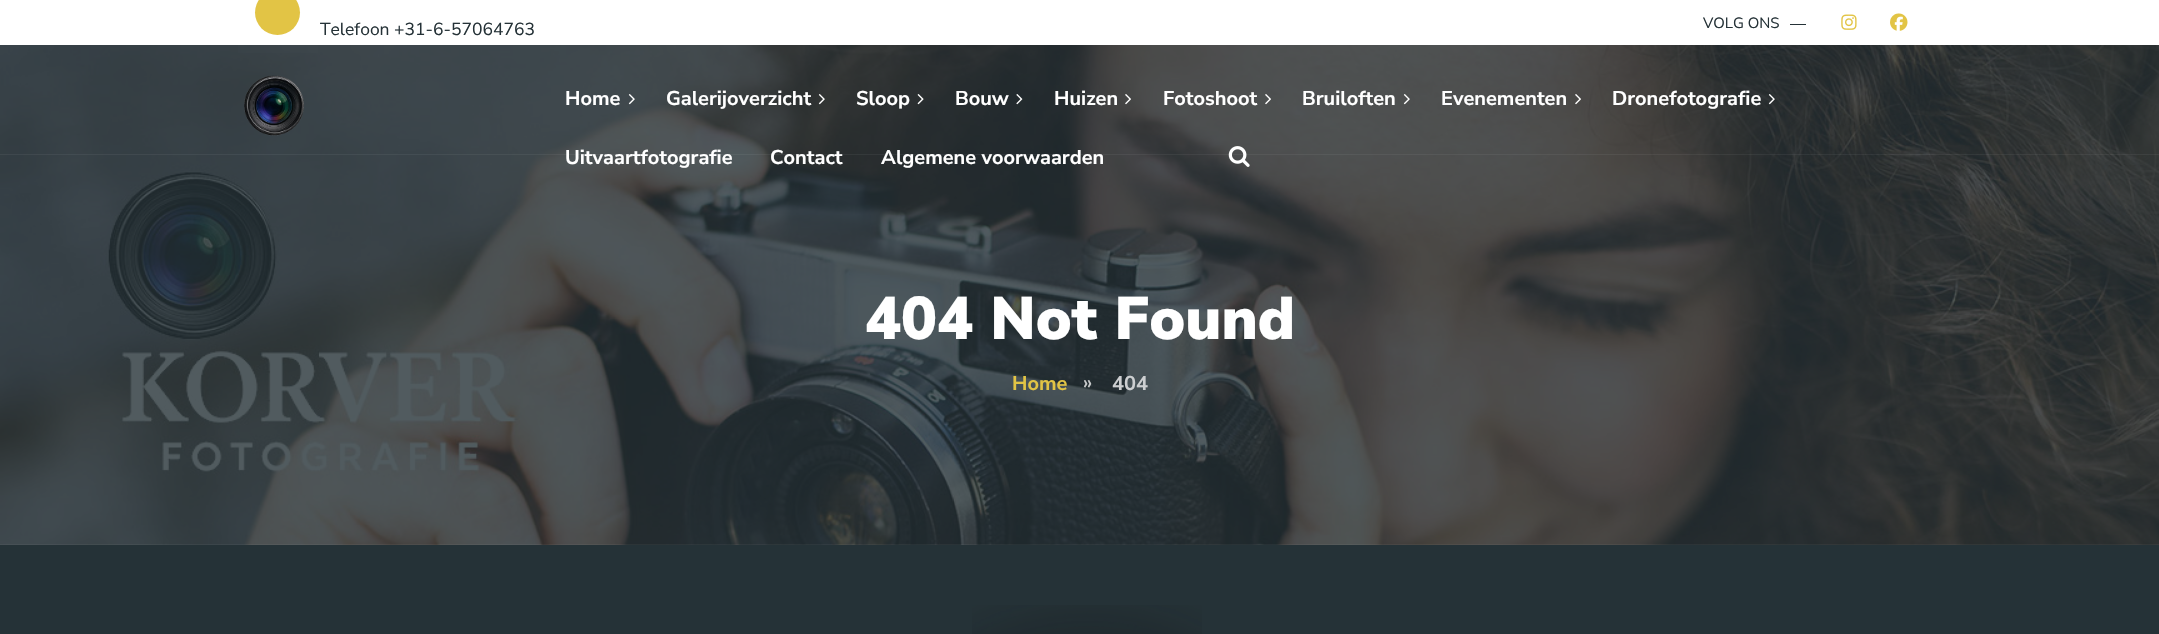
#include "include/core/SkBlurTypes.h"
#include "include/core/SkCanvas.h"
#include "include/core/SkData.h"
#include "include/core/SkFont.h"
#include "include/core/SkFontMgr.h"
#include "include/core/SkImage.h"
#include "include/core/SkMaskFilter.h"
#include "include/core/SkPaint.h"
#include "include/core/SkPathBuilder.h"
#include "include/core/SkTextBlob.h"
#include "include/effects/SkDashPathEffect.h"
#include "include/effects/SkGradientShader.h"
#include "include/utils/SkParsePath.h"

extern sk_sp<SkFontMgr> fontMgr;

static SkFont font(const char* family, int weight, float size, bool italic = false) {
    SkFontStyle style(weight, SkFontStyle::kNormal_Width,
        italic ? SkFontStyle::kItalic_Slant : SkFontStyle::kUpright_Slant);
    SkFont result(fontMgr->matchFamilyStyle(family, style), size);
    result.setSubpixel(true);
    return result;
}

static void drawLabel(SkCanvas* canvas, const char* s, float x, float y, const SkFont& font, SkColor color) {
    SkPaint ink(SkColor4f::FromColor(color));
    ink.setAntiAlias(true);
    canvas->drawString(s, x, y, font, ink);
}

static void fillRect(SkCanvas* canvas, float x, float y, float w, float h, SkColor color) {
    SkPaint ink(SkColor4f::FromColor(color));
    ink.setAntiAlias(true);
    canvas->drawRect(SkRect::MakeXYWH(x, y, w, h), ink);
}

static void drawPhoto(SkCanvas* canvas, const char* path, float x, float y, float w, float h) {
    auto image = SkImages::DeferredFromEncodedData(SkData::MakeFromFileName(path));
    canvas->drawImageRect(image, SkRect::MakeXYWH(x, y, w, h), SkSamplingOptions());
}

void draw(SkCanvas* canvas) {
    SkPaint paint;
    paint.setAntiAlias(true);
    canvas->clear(0xFF253237);
    fillRect(canvas, 0, 0, 2159, 45, 0xFFFFFFFF);
    drawPhoto(canvas, "assets/img14.png", 0, 45, 2159, 500);
    paint.setStroke(true);
    paint.setStrokeWidth(18);
    paint.setColor(0x0DFFFFFF);
    canvas->drawRect(SkRect::MakeXYWH(247, -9, 62, 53), paint);
    paint.setStroke(false);
    paint.setColor(0xFFE2C445);
    canvas->drawCircle(277.5f, 12.5f, 22.5f, paint);
    SkFont font1 = font("Nunito Sans", 400, 17.5f);
    drawLabel(canvas, "Telefoon +31-6-57064763", 320, 35, font1, 0xFF253237);
    SkFont font2 = font("Nunito Sans", 400, 15);
    drawLabel(canvas, "VOLG ONS", 1703, 28, font2, 0xFF253237);
    fillRect(canvas, 1790, 24, 16, 1, 0xFF253237);
    drawPhoto(canvas, "assets/img1.png", 1841, 14, 16, 16);
    drawPhoto(canvas, "assets/img2.png", 1890, 13, 18, 18);
    fillRect(canvas, 0, 45, 2159, 500, 0xCC253237);
    fillRect(canvas, 0, 154, 2159, 1, 0x0DFFFFFF);
    drawPhoto(canvas, "assets/img3.png", 244, 75, 60, 61);
    SkFont font3 = font("Nunito Sans", 700, 20);
    drawLabel(canvas, "Home", 565, 105, font3, 0xFFFFFFFF);
    drawPhoto(canvas, "assets/img4.png", 628, 94, 7, 11);
    drawLabel(canvas, "Galerijoverzicht", 666, 105, font3, 0xFFFFFFFF);
    drawPhoto(canvas, "assets/img5.png", 818, 94, 7, 11);
    drawLabel(canvas, "Sloop", 856, 105, font3, 0xFFFFFFFF);
    drawPhoto(canvas, "assets/img6.png", 917, 94, 7, 11);
    drawLabel(canvas, "Bouw", 955, 105, font3, 0xFFFFFFFF);
    drawPhoto(canvas, "assets/img7.png", 1016, 94, 7, 11);
    drawLabel(canvas, "Huizen", 1054, 105, font3, 0xFFFFFFFF);
    drawPhoto(canvas, "assets/img8.png", 1125, 94, 6, 11);
    drawLabel(canvas, "Fotoshoot", 1163, 105, font3, 0xFFFFFFFF);
    drawPhoto(canvas, "assets/img9.png", 1265, 94, 6, 11);
    drawLabel(canvas, "Bruiloften", 1302, 105, font3, 0xFFFFFFFF);
    drawPhoto(canvas, "assets/img10.png", 1403, 94, 7, 11);
    drawLabel(canvas, "Evenementen", 1441, 105, font3, 0xFFFFFFFF);
    drawPhoto(canvas, "assets/img11.png", 1575, 94, 6, 11);
    drawLabel(canvas, "Dronefotografie", 1612, 105, font3, 0xFFFFFFFF);
    drawPhoto(canvas, "assets/img12.png", 1768, 94, 7, 11);
    drawLabel(canvas, "Uitvaartfotografie", 565, 164, font3, 0xFFFFFFFF);
    drawLabel(canvas, "Contact", 770, 164, font3, 0xFFFFFFFF);
    drawLabel(canvas, "Algemene voorwaarden", 881, 164, font3, 0xFFFFFFFF);
    drawPhoto(canvas, "assets/img13.png", 1228, 146, 22, 21);
    fillRect(canvas, 0, 544, 2159, 1, 0x0AFFFFFF);
    SkFont font4 = font("Nunito Sans", 900, 60);
    drawLabel(canvas, "404 Not Found", 865, 339, font4, 0xFFFFFFFF);
    drawLabel(canvas, "Home", 1012, 390, font3, 0xFFE2C445);
    SkFont font5 = font("Nunito Sans", 600, 20);
    drawLabel(canvas, "»", 1083, 389, font5, 0xFFC8CACB);
    drawLabel(canvas, "404", 1112, 390, font3, 0xFFCDCFD1);
    drawPhoto(canvas, "assets/img15.png", 972, 605, 230, 29);
}
